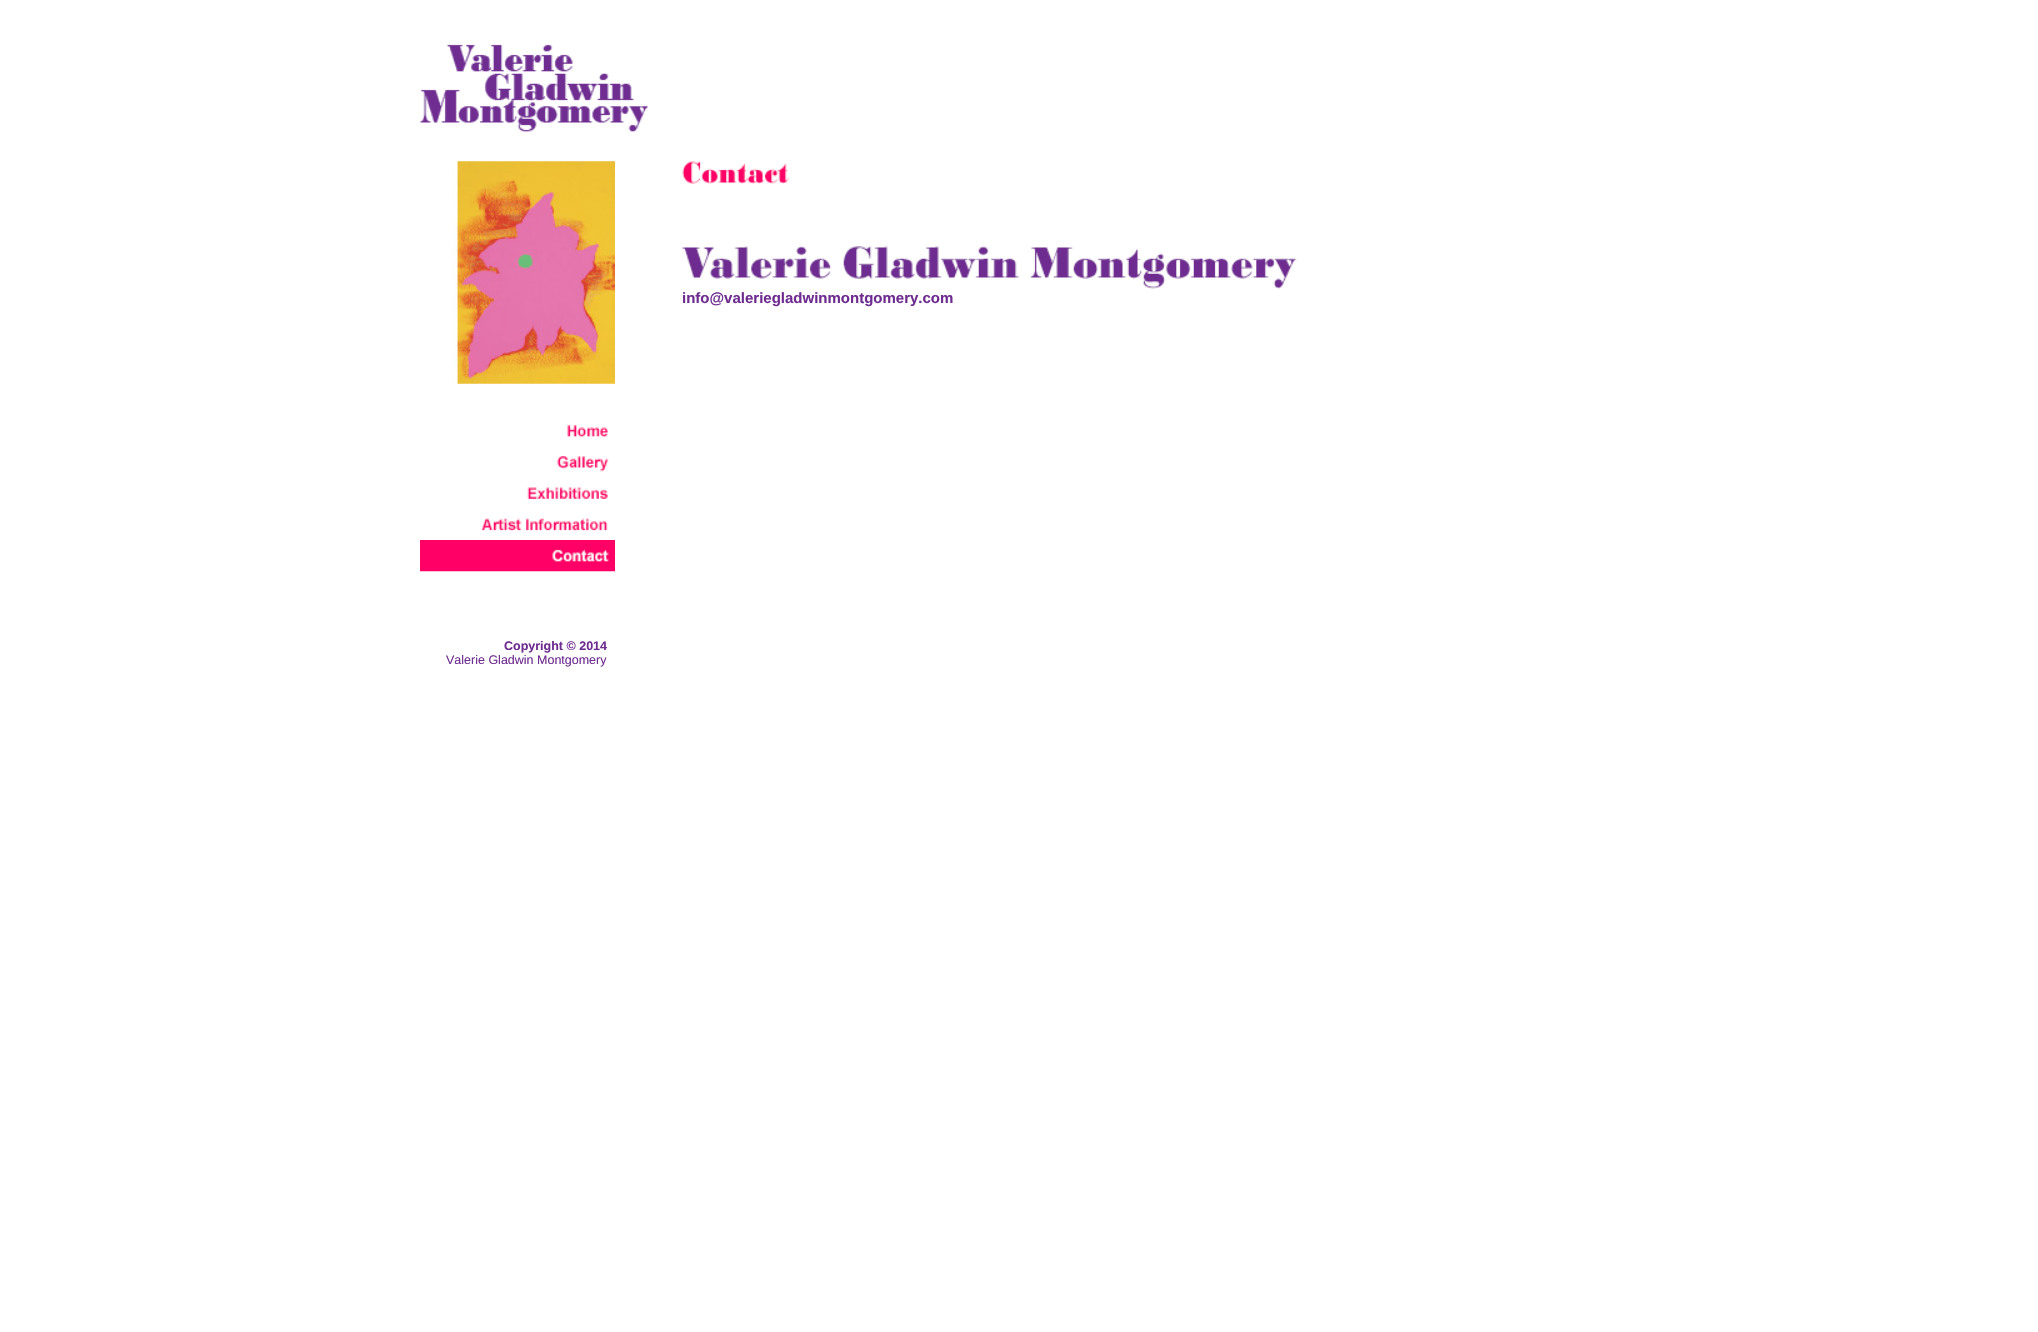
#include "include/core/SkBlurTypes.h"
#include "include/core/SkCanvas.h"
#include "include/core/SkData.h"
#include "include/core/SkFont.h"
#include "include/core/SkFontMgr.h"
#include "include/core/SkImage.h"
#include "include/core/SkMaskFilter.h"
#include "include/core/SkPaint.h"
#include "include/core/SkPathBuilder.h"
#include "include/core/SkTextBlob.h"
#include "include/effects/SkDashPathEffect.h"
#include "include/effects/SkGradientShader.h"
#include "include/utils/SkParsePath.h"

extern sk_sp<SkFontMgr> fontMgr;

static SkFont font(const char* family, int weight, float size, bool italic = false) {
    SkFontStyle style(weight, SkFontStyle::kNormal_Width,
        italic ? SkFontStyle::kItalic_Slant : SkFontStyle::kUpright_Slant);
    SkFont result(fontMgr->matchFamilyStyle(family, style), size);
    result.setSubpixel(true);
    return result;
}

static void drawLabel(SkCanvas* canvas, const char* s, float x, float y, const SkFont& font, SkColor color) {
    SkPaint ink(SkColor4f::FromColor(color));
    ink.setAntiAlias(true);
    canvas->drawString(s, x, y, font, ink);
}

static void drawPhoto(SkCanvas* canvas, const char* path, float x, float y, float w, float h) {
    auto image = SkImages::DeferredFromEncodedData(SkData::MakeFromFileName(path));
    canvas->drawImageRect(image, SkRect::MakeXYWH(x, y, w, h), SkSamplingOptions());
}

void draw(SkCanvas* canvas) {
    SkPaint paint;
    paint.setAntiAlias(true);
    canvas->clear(0xFFFFFFFF);
    drawPhoto(canvas, "assets/img1.png", 420, 44, 228, 88);
    drawPhoto(canvas, "assets/img2.png", 453, 161, 162, 223);
    drawPhoto(canvas, "assets/img3.png", 567, 424, 41, 13);
    drawPhoto(canvas, "assets/img4.png", 557, 456, 52, 16);
    drawPhoto(canvas, "assets/img5.png", 527, 487, 81, 12);
    drawPhoto(canvas, "assets/img6.png", 481, 518, 127, 13);
    drawPhoto(canvas, "assets/img7.png", 420, 540, 195, 32);
    drawPhoto(canvas, "assets/img8.png", 682, 161, 107, 23);
    drawPhoto(canvas, "assets/img9.png", 682, 246, 615, 43);
    SkFont font1 = font("Liberation Sans", 700, 15);
    drawLabel(canvas, "info@valeriegladwinmontgomery.com", 682, 303, font1, 0xFF6E2C90);
    SkFont font2 = font("Liberation Sans", 700, 12.5f);
    drawLabel(canvas, "Copyright © 2014", 504, 650, font2, 0xFF6E2C90);
    SkFont font3 = font("Liberation Sans", 400, 12.5f);
    drawLabel(canvas, "Valerie Gladwin Montgomery", 446, 664, font3, 0xFF6E2C90);
}
